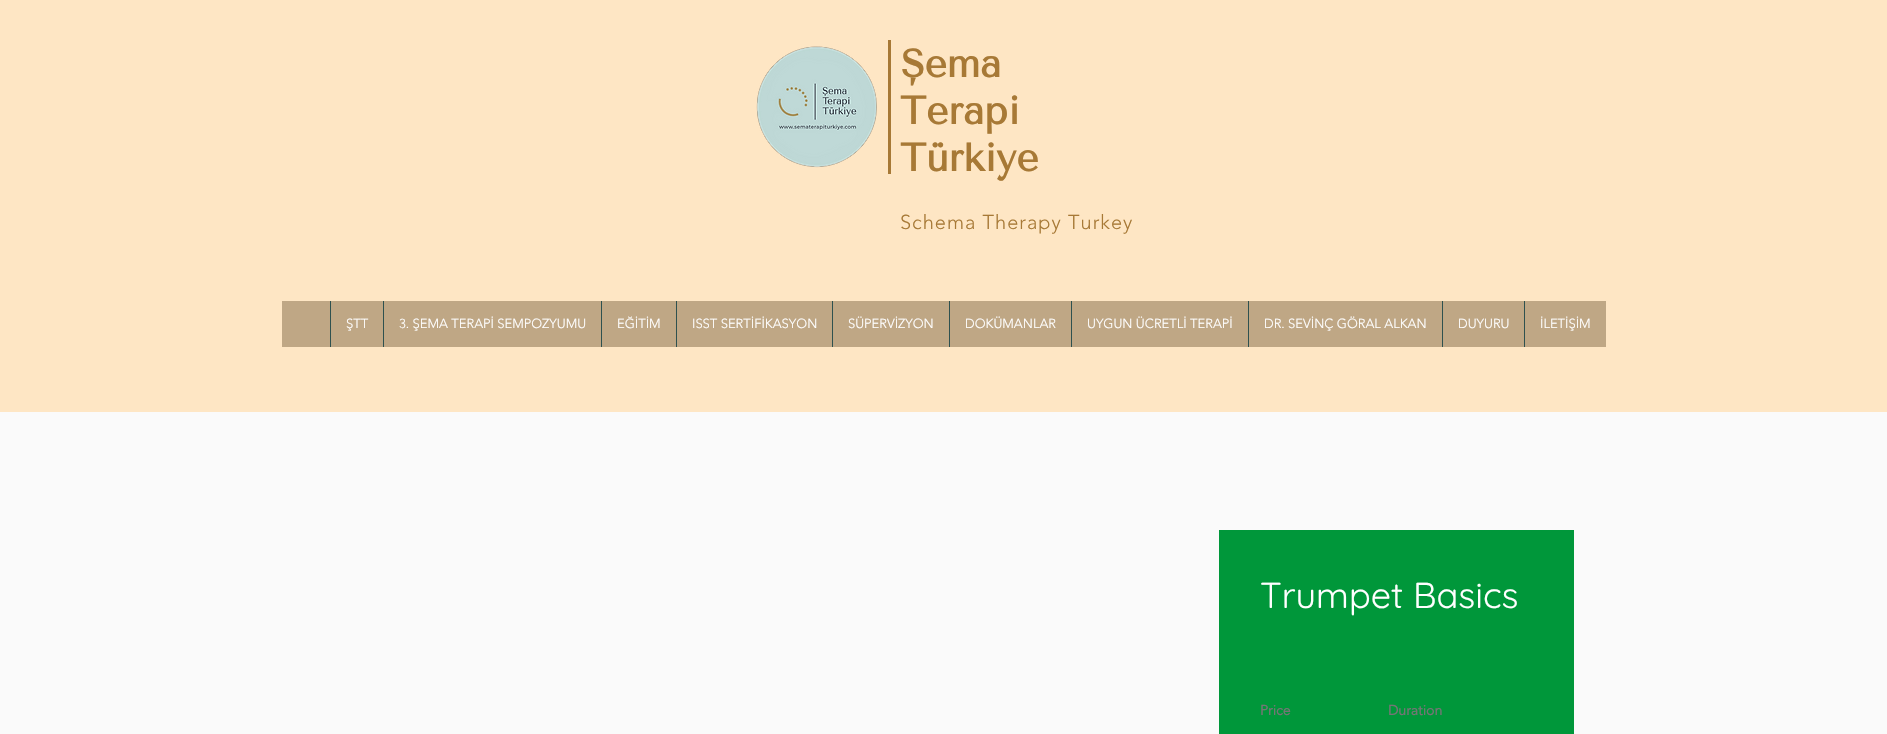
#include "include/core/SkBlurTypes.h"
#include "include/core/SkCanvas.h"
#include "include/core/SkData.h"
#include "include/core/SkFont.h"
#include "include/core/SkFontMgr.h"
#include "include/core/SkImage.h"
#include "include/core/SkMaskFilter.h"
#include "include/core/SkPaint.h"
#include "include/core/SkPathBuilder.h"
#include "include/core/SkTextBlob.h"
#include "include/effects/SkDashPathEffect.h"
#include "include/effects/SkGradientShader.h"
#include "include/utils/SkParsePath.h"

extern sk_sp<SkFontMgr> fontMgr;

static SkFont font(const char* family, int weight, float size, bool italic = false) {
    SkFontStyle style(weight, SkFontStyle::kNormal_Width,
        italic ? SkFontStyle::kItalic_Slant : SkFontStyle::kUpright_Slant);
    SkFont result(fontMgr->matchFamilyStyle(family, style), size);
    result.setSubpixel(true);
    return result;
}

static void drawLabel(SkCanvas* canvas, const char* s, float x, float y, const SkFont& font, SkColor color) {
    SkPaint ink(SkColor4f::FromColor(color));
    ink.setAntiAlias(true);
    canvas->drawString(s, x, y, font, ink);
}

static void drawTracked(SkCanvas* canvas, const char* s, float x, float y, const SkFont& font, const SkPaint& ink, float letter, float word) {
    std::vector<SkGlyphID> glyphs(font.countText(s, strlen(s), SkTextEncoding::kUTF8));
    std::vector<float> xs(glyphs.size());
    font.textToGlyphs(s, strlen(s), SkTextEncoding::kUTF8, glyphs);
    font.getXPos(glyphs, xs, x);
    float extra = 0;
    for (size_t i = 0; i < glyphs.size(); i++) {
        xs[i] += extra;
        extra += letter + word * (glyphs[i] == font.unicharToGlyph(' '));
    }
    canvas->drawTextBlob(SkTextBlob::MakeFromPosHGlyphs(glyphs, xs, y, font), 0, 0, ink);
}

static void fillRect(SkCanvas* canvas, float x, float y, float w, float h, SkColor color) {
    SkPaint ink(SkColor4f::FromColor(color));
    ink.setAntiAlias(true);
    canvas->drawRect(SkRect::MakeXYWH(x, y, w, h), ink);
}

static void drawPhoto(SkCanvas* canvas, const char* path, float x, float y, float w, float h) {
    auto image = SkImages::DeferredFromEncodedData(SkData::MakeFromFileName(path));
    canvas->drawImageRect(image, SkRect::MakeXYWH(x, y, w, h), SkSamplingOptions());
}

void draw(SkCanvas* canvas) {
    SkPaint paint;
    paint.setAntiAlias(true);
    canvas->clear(0xFFFEE6C4);
    drawPhoto(canvas, "assets/img1.png", 756, 46, 121, 122);
    fillRect(canvas, 888, 40, 3, 134, 0xFFA77936);
    SkFont font1 = font("Tenor Sans", 700, 39);
    drawLabel(canvas, "Şema", 900, 77, font1, 0xFFA77936);
    drawLabel(canvas, "Terapi", 900, 124, font1, 0xFFA77936);
    drawLabel(canvas, "Türkiye", 900, 171, font1, 0xFFA77936);
    SkFont font2 = font("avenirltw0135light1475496", 300, 20);
    paint.setColor(0xFFA77936);
    drawTracked(canvas, "Schema Therapy Turkey", 900, 229, font2, paint, 1, 0);
    fillRect(canvas, 282, 301, 1324, 46, 0xFFBFA785);
    fillRect(canvas, 330, 301, 1, 46, 0xFF2E514F);
    SkFont font3 = font("avenirltw0135light1475496", 300, 13);
    drawLabel(canvas, "ŞTT", 346, 328, font3, 0xFFFFFFFF);
    fillRect(canvas, 383, 301, 1, 46, 0xFF2E514F);
    drawLabel(canvas, "3. ŞEMA TERAPİ SEMPOZYUMU", 399, 328, font3, 0xFFFFFFFF);
    fillRect(canvas, 601, 301, 1, 46, 0xFF2E514F);
    drawLabel(canvas, "EĞİTİM", 617, 328, font3, 0xFFFFFFFF);
    fillRect(canvas, 676, 301, 1, 46, 0xFF2E514F);
    drawLabel(canvas, "ISST SERTİFİKASYON", 692, 328, font3, 0xFFFFFFFF);
    fillRect(canvas, 832, 301, 1, 46, 0xFF2E514F);
    drawLabel(canvas, "SÜPERVİZYON", 848, 328, font3, 0xFFFFFFFF);
    fillRect(canvas, 949, 301, 1, 46, 0xFF2E514F);
    drawLabel(canvas, "DOKÜMANLAR", 965, 328, font3, 0xFFFFFFFF);
    fillRect(canvas, 1071, 301, 1, 46, 0xFF2E514F);
    drawLabel(canvas, "UYGUN ÜCRETLİ TERAPİ", 1087, 328, font3, 0xFFFFFFFF);
    fillRect(canvas, 1248, 301, 1, 46, 0xFF2E514F);
    drawLabel(canvas, "DR. SEVİNÇ GÖRAL ALKAN", 1264, 328, font3, 0xFFFFFFFF);
    fillRect(canvas, 1442, 301, 1, 46, 0xFF2E514F);
    drawLabel(canvas, "DUYURU", 1458, 328, font3, 0xFFFFFFFF);
    fillRect(canvas, 1524, 301, 1, 46, 0xFF2E514F);
    drawLabel(canvas, "İLETİŞİM", 1540, 328, font3, 0xFFFFFFFF);
    fillRect(canvas, 0, 412, 1887, 322, 0xFFFAFAFA);
    fillRect(canvas, 1219, 530, 355, 204, 0xFF00973A);
    SkFont font4 = font("Quicksand", 400, 36);
    drawLabel(canvas, "Trumpet Basics", 1260, 608, font4, 0xFFFFFFFF);
    SkFont font5 = font("avenirltw0135light1475496", 700, 14);
    drawLabel(canvas, "Price", 1260, 715, font5, 0xFF757575);
    drawLabel(canvas, "Duration", 1388, 715, font5, 0xFF757575);
}
